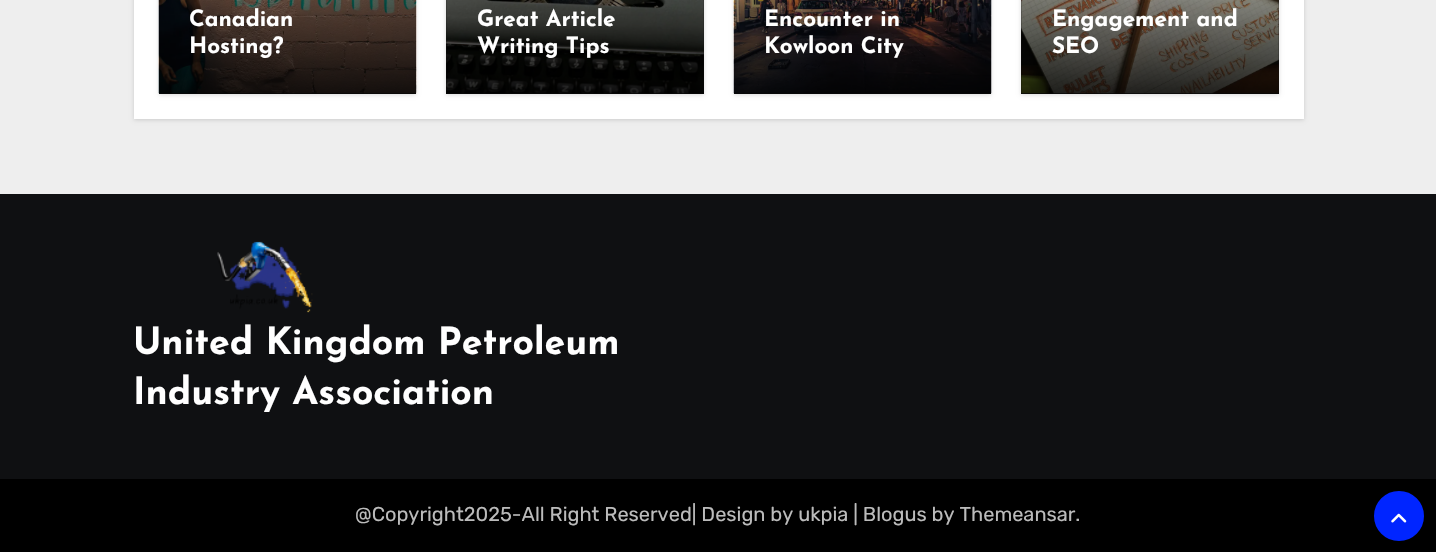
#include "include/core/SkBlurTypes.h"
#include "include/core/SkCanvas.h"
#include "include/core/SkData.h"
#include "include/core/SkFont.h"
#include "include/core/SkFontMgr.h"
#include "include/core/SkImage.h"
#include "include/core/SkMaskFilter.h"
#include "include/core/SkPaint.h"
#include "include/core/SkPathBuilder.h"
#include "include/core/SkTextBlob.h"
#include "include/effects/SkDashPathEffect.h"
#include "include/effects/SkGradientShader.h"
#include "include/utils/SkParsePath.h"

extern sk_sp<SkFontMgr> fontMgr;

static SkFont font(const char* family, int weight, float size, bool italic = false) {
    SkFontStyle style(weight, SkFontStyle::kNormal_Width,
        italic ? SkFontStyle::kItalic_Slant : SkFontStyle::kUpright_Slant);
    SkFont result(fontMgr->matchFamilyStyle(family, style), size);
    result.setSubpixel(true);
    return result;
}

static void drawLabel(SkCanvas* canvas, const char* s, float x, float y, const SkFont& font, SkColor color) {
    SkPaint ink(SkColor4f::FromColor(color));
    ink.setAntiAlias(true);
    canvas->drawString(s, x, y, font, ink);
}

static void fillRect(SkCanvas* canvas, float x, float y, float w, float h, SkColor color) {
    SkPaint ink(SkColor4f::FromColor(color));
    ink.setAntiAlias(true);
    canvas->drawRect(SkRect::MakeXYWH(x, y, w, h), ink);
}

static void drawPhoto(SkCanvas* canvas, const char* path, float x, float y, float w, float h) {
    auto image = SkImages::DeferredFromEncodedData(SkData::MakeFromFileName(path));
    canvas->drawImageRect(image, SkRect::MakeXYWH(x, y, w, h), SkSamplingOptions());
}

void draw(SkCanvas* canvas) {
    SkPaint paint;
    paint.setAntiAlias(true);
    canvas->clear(0xFFEEEEEE);
    paint.setColor(0x26000000);
    paint.setMaskFilter(SkMaskFilter::MakeBlur(kNormal_SkBlurStyle, 2));
    canvas->drawRect(SkRect::MakeXYWH(134, -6, 1170, 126), paint);
    paint.setMaskFilter(nullptr);
    fillRect(canvas, 134, 0, 1170, 119, 0xFFFFFFFF);
    paint.setMaskFilter(SkMaskFilter::MakeBlur(kNormal_SkBlurStyle, 2));
    canvas->drawRect(SkRect::MakeXYWH(159, -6, 257, 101), paint);
    paint.setMaskFilter(nullptr);
    fillRect(canvas, 159, 93, 257, 1, 0xFF333333);
    drawPhoto(canvas, "assets/img1.png", 158, 0, 259, 94);
    {
        const SkColor colors[] = {0x00000000, 0x00000000, 0x66000000, 0xD9000000};
        const float stops[] = {0, 0.45f, 0.6f, 1};
        const SkPoint ends[] = {{288, -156}, {288, 94}};
        paint.setShader(SkGradientShader::MakeLinear(ends, colors, stops, 4, SkTileMode::kClamp));
        paint.setAlpha(255);
    }
    canvas->drawRect(SkRect::MakeXYWH(159, 0, 257, 94), paint);
    SkFont font1 = font("Josefin Sans", 700, 22.5f);
    drawLabel(canvas, "Canadian", 189, 26, font1, 0xFFFFFFFF);
    drawLabel(canvas, "Hosting?", 189, 53, font1, 0xFFFFFFFF);
    paint.setShader(nullptr);
    paint.setColor(0x26000000);
    paint.setMaskFilter(SkMaskFilter::MakeBlur(kNormal_SkBlurStyle, 2));
    canvas->drawRect(SkRect::MakeXYWH(446, -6, 258, 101), paint);
    paint.setMaskFilter(nullptr);
    fillRect(canvas, 446, 0, 258, 94, 0xFF333333);
    drawPhoto(canvas, "assets/img2.png", 446, 0, 258, 94);
    {
        const SkColor colors[] = {0x00000000, 0x00000000, 0x66000000, 0xD9000000};
        const float stops[] = {0, 0.45f, 0.6f, 1};
        const SkPoint ends[] = {{575, -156}, {575, 94}};
        paint.setShader(SkGradientShader::MakeLinear(ends, colors, stops, 4, SkTileMode::kClamp));
        paint.setAlpha(255);
    }
    canvas->drawRect(SkRect::MakeXYWH(446, 0, 258, 94), paint);
    drawLabel(canvas, "Great Article", 477, 26, font1, 0xFFFFFFFF);
    drawLabel(canvas, "Writing Tips", 477, 53, font1, 0xFFFFFFFF);
    paint.setShader(nullptr);
    paint.setColor(0x26000000);
    paint.setMaskFilter(SkMaskFilter::MakeBlur(kNormal_SkBlurStyle, 2));
    canvas->drawRect(SkRect::MakeXYWH(734, -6, 257, 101), paint);
    paint.setMaskFilter(nullptr);
    fillRect(canvas, 734, 93, 257, 1, 0xFF333333);
    drawPhoto(canvas, "assets/img3.png", 733, 0, 259, 94);
    {
        const SkColor colors[] = {0x00000000, 0x00000000, 0x66000000, 0xD9000000};
        const float stops[] = {0, 0.45f, 0.6f, 1};
        const SkPoint ends[] = {{863, -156}, {863, 94}};
        paint.setShader(SkGradientShader::MakeLinear(ends, colors, stops, 4, SkTileMode::kClamp));
        paint.setAlpha(255);
    }
    canvas->drawRect(SkRect::MakeXYWH(734, 0, 257, 94), paint);
    drawLabel(canvas, "Encounter in", 764, 26, font1, 0xFFFFFFFF);
    drawLabel(canvas, "Kowloon City", 764, 53, font1, 0xFFFFFFFF);
    paint.setShader(nullptr);
    paint.setColor(0x26000000);
    paint.setMaskFilter(SkMaskFilter::MakeBlur(kNormal_SkBlurStyle, 2));
    canvas->drawRect(SkRect::MakeXYWH(1021, -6, 258, 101), paint);
    paint.setMaskFilter(nullptr);
    fillRect(canvas, 1021, 0, 258, 94, 0xFF333333);
    drawPhoto(canvas, "assets/img4.png", 1021, 0, 258, 94);
    {
        const SkColor colors[] = {0x00000000, 0x00000000, 0x66000000, 0xD9000000};
        const float stops[] = {0, 0.45f, 0.6f, 1};
        const SkPoint ends[] = {{1150, -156}, {1150, 94}};
        paint.setShader(SkGradientShader::MakeLinear(ends, colors, stops, 4, SkTileMode::kClamp));
        paint.setAlpha(255);
    }
    canvas->drawRect(SkRect::MakeXYWH(1021, 0, 258, 94), paint);
    drawLabel(canvas, "Engagement and", 1052, 26, font1, 0xFFFFFFFF);
    drawLabel(canvas, "SEO", 1052, 53, font1, 0xFFFFFFFF);
    fillRect(canvas, 0, 194, 1436, 285, 0xFF0F1012);
    drawPhoto(canvas, "assets/img5.png", 217, 241, 96, 72);
    SkFont font2 = font("Josefin Sans", 700, 37.5f);
    drawLabel(canvas, "United Kingdom Petroleum", 133, 354, font2, 0xFFFFFFFF);
    drawLabel(canvas, "Industry Association", 133, 404, font2, 0xFFFFFFFF);
    fillRect(canvas, 0, 479, 1436, 73, 0xFF000000);
    SkFont font3 = font("Rubik", 300, 20);
    drawLabel(canvas, "@Copyright2025-All Right Reserved| Design by ukpia | Blogus by Themeansar.", 355, 521, font3, 0xFFBBBBBB);
    paint.setShader(nullptr);
    paint.setColor(0xFF0025FF);
    canvas->drawCircle(1399, 516, 23.5f, paint);
    paint.setStroke(true);
    paint.setStrokeWidth(3);
    canvas->drawCircle(1399, 516, 23.5f, paint);
    drawPhoto(canvas, "assets/img6.png", 1391, 513, 16, 10);
}
